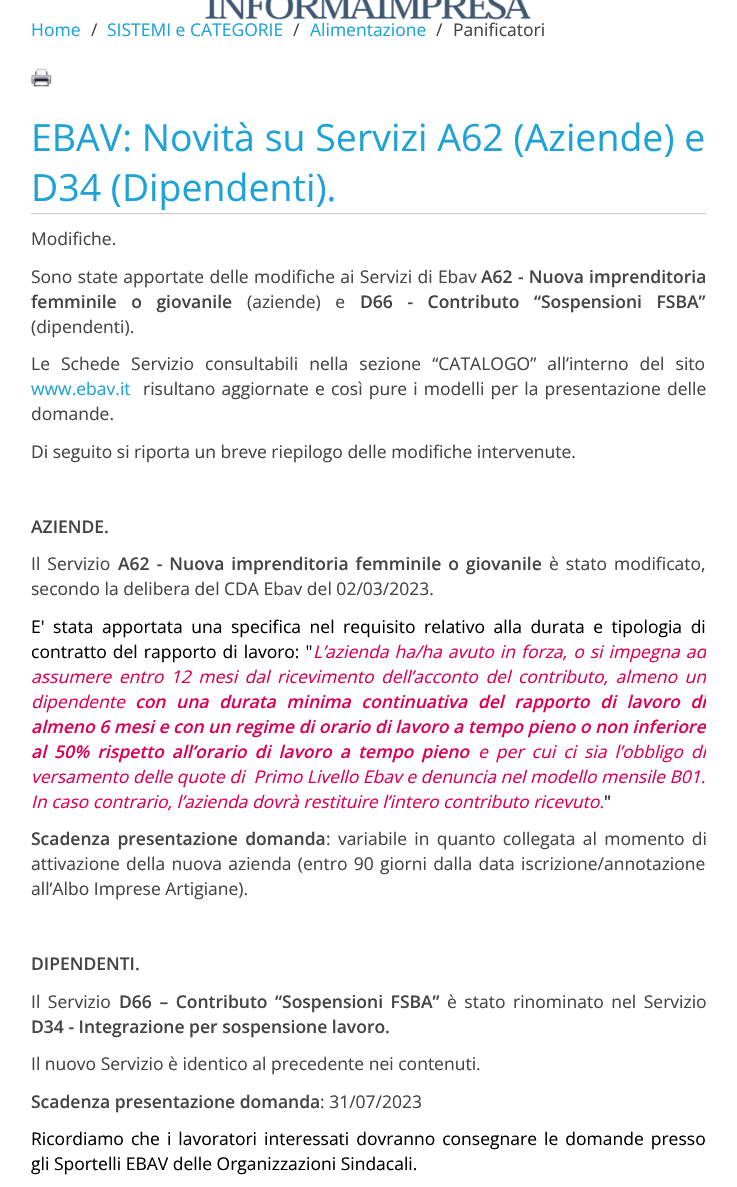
#include "include/core/SkBlurTypes.h"
#include "include/core/SkCanvas.h"
#include "include/core/SkData.h"
#include "include/core/SkFont.h"
#include "include/core/SkFontMgr.h"
#include "include/core/SkImage.h"
#include "include/core/SkMaskFilter.h"
#include "include/core/SkPaint.h"
#include "include/core/SkPathBuilder.h"
#include "include/core/SkTextBlob.h"
#include "include/effects/SkDashPathEffect.h"
#include "include/effects/SkGradientShader.h"
#include "include/utils/SkParsePath.h"

extern sk_sp<SkFontMgr> fontMgr;

static SkFont font(const char* family, int weight, float size, bool italic = false) {
    SkFontStyle style(weight, SkFontStyle::kNormal_Width,
        italic ? SkFontStyle::kItalic_Slant : SkFontStyle::kUpright_Slant);
    SkFont result(fontMgr->matchFamilyStyle(family, style), size);
    result.setSubpixel(true);
    return result;
}

static void drawLabel(SkCanvas* canvas, const char* s, float x, float y, const SkFont& font, SkColor color) {
    SkPaint ink(SkColor4f::FromColor(color));
    ink.setAntiAlias(true);
    canvas->drawString(s, x, y, font, ink);
}

static void drawTracked(SkCanvas* canvas, const char* s, float x, float y, const SkFont& font, const SkPaint& ink, float letter, float word) {
    std::vector<SkGlyphID> glyphs(font.countText(s, strlen(s), SkTextEncoding::kUTF8));
    std::vector<float> xs(glyphs.size());
    font.textToGlyphs(s, strlen(s), SkTextEncoding::kUTF8, glyphs);
    font.getXPos(glyphs, xs, x);
    float extra = 0;
    for (size_t i = 0; i < glyphs.size(); i++) {
        xs[i] += extra;
        extra += letter + word * (glyphs[i] == font.unicharToGlyph(' '));
    }
    canvas->drawTextBlob(SkTextBlob::MakeFromPosHGlyphs(glyphs, xs, y, font), 0, 0, ink);
}

static void fillRect(SkCanvas* canvas, float x, float y, float w, float h, SkColor color) {
    SkPaint ink(SkColor4f::FromColor(color));
    ink.setAntiAlias(true);
    canvas->drawRect(SkRect::MakeXYWH(x, y, w, h), ink);
}

static void drawPhoto(SkCanvas* canvas, const char* path, float x, float y, float w, float h) {
    auto image = SkImages::DeferredFromEncodedData(SkData::MakeFromFileName(path));
    canvas->drawImageRect(image, SkRect::MakeXYWH(x, y, w, h), SkSamplingOptions());
}

void draw(SkCanvas* canvas) {
    SkPaint paint;
    paint.setAntiAlias(true);
    canvas->clear(0xFFFFFFFF);
    drawPhoto(canvas, "assets/img1.png", 205, 0, 326, 20);
    SkFont font1 = font("Open Sans", 400, 17.5f);
    drawLabel(canvas, "Home", 31, 36, font1, 0xFF1FA2D6);
    drawLabel(canvas, "/", 91, 36, font1, 0xFF444444);
    drawLabel(canvas, "SISTEMI e CATEGORIE", 107, 36, font1, 0xFF1FA2D6);
    drawLabel(canvas, "/", 293, 36, font1, 0xFF444444);
    drawLabel(canvas, "Alimentazione", 310, 36, font1, 0xFF1FA2D6);
    drawLabel(canvas, "/", 436, 36, font1, 0xFF444444);
    drawLabel(canvas, "Panificatori", 453, 36, font1, 0xFF444444);
    drawPhoto(canvas, "assets/img2.png", 31, 68, 21, 19);
    fillRect(canvas, 31, 213, 675, 1, 0xFFC8C8C8);
    SkFont font2 = font("Open Sans", 400, 37.5f);
    drawLabel(canvas, "EBAV: Novità su Servizi A62 (Aziende) e", 31, 151, font2, 0xFF1FA2D6);
    drawLabel(canvas, "D34 (Dipendenti).", 31, 201, font2, 0xFF1FA2D6);
    drawLabel(canvas, "Modifiche.", 31, 245, font1, 0xFF444444);
    paint.setColor(0xFF444444);
    drawTracked(canvas, "Sono state apportate delle modifiche ai Servizi di Ebav", 31, 283, font1, paint, 0, 0.75f);
    SkFont font3 = font("Open Sans", 600, 17.5f);
    drawTracked(canvas, "A62 - Nuova imprenditoria", 481, 283, font3, paint, 0, 0.75f);
    drawTracked(canvas, "femminile o giovanile", 31, 308, font3, paint, 0, 10);
    drawTracked(canvas, "(aziende) e", 247, 308, font1, paint, 0, 10);
    drawTracked(canvas, "D66 - Contributo “Sospensioni FSBA”", 360, 308, font3, paint, 0, 10);
    drawLabel(canvas, "(dipendenti).", 31, 333, font1, 0xFF444444);
    drawTracked(canvas, "Le Schede Servizio consultabili nella sezione “CATALOGO” all’interno del sito", 31, 370, font1, paint, 0, 6.5f);
    drawLabel(canvas, "www.ebav.it", 31, 395, font1, 0xFF1FA2D6);
    drawTracked(canvas, "risultano aggiornate e così pure i modelli per la presentazione delle", 143, 395, font1, paint, 0, 1.6f);
    drawLabel(canvas, "domande.", 31, 420, font1, 0xFF444444);
    drawLabel(canvas, "Di seguito si riporta un breve riepilogo delle modifiche intervenute.", 31, 458, font1, 0xFF444444);
    drawLabel(canvas, "AZIENDE.", 31, 533, font3, 0xFF444444);
    drawTracked(canvas, "Il Servizio", 31, 570, font1, paint, 0, 2.5f);
    drawTracked(canvas, "A62 - Nuova imprenditoria femminile o giovanile", 118, 570, font3, paint, 0, 2.5f);
    drawTracked(canvas, "è stato modificato,", 549, 570, font1, paint, 0, 2.5f);
    drawLabel(canvas, "secondo la delibera del CDA Ebav del 02/03/2023.", 31, 595, font1, 0xFF444444);
    paint.setColor(0xFF000000);
    drawTracked(canvas, "E' stata apportata una specifica nel requisito relativo alla durata e tipologia di", 31, 633, font1, paint, 0, 4);
    drawTracked(canvas, "contratto del rapporto di lavoro: \"", 31, 658, font1, paint, 0, 1.5f);
    canvas->save();
    canvas->clipRect(SkRect::MakeXYWH(31, 614, 675, 200));
    SkFont font4 = font("Open Sans", 400, 17.5f, true);
    paint.setColor(0xFFDD0055);
    drawTracked(canvas, "L’azienda ha/ha avuto in forza, o si impegna ad", 313, 658, font4, paint, 0, 1.5f);
    drawTracked(canvas, "assumere entro 12 mesi dal ricevimento dell’acconto del contributo, almeno un", 31, 683, font4, paint, 0, 3);
    canvas->restore();
    drawLabel(canvas, "dipendente", 31, 708, font4, 0xFFDD0055);
    canvas->save();
    canvas->clipRect(SkRect::MakeXYWH(31, 614, 675, 200));
    SkFont font5 = font("Open Sans", 600, 17.5f, true);
    drawTracked(canvas, "con una durata minima continuativa del rapporto di lavoro di", 135, 708, font5, paint, 0, 6);
    drawLabel(canvas, "almeno 6 mesi e con un regime di orario di lavoro a tempo pieno o non inferiore", 31, 733, font5, 0xFFDD0055);
    canvas->restore();
    drawTracked(canvas, "al 50% rispetto all’orario di lavoro a tempo pieno", 31, 758, font5, paint, 0, 3.5f);
    canvas->save();
    canvas->clipRect(SkRect::MakeXYWH(31, 614, 675, 200));
    drawTracked(canvas, "e per cui ci sia l’obbligo di", 478, 758, font4, paint, 0, 3.5f);
    canvas->restore();
    drawLabel(canvas, "versamento delle quote di  Primo Livello Ebav e denuncia nel modello mensile B01.", 31, 783, font4, 0xFFDD0055);
    drawLabel(canvas, "In caso contrario, l’azienda dovrà restituire l’intero contributo ricevuto.", 31, 808, font4, 0xFFDD0055);
    drawLabel(canvas, "\"", 604, 808, font1, 0xFF000000);
    paint.setColor(0xFF444444);
    drawTracked(canvas, "Scadenza presentazione domanda", 31, 845, font3, paint, 0, 2.75f);
    drawTracked(canvas, ": variabile in quanto collegata al momento di", 326, 845, font1, paint, 0, 2.75f);
    drawTracked(canvas, "attivazione della nuova azienda (entro 90 giorni dalla data iscrizione/annotazione", 31, 870, font1, paint, 0, 1.75f);
    drawLabel(canvas, "all’Albo Imprese Artigiane).", 31, 895, font1, 0xFF444444);
    drawLabel(canvas, "DIPENDENTI.", 31, 970, font3, 0xFF444444);
    drawTracked(canvas, "Il Servizio", 31, 1008, font1, paint, 0, 3);
    drawTracked(canvas, "D66 – Contributo “Sospensioni FSBA”", 119, 1008, font3, paint, 0, 3);
    drawTracked(canvas, "è stato rinominato nel Servizio", 447, 1008, font1, paint, 0, 3);
    drawLabel(canvas, "D34 - Integrazione per sospensione lavoro.", 31, 1033, font3, 0xFF444444);
    drawLabel(canvas, "Il nuovo Servizio è identico al precedente nei contenuti.", 31, 1070, font1, 0xFF444444);
    drawLabel(canvas, "Scadenza presentazione domanda", 31, 1108, font3, 0xFF444444);
    drawLabel(canvas, ": 31/07/2023", 320, 1108, font1, 0xFF444444);
    paint.setColor(0xFF000000);
    drawTracked(canvas, "Ricordiamo che i lavoratori interessati dovranno consegnare le domande presso", 31, 1145, font1, paint, 0, 2.5f);
    drawLabel(canvas, "gli Sportelli EBAV delle Organizzazioni Sindacali.", 31, 1170, font1, 0xFF000000);
}
